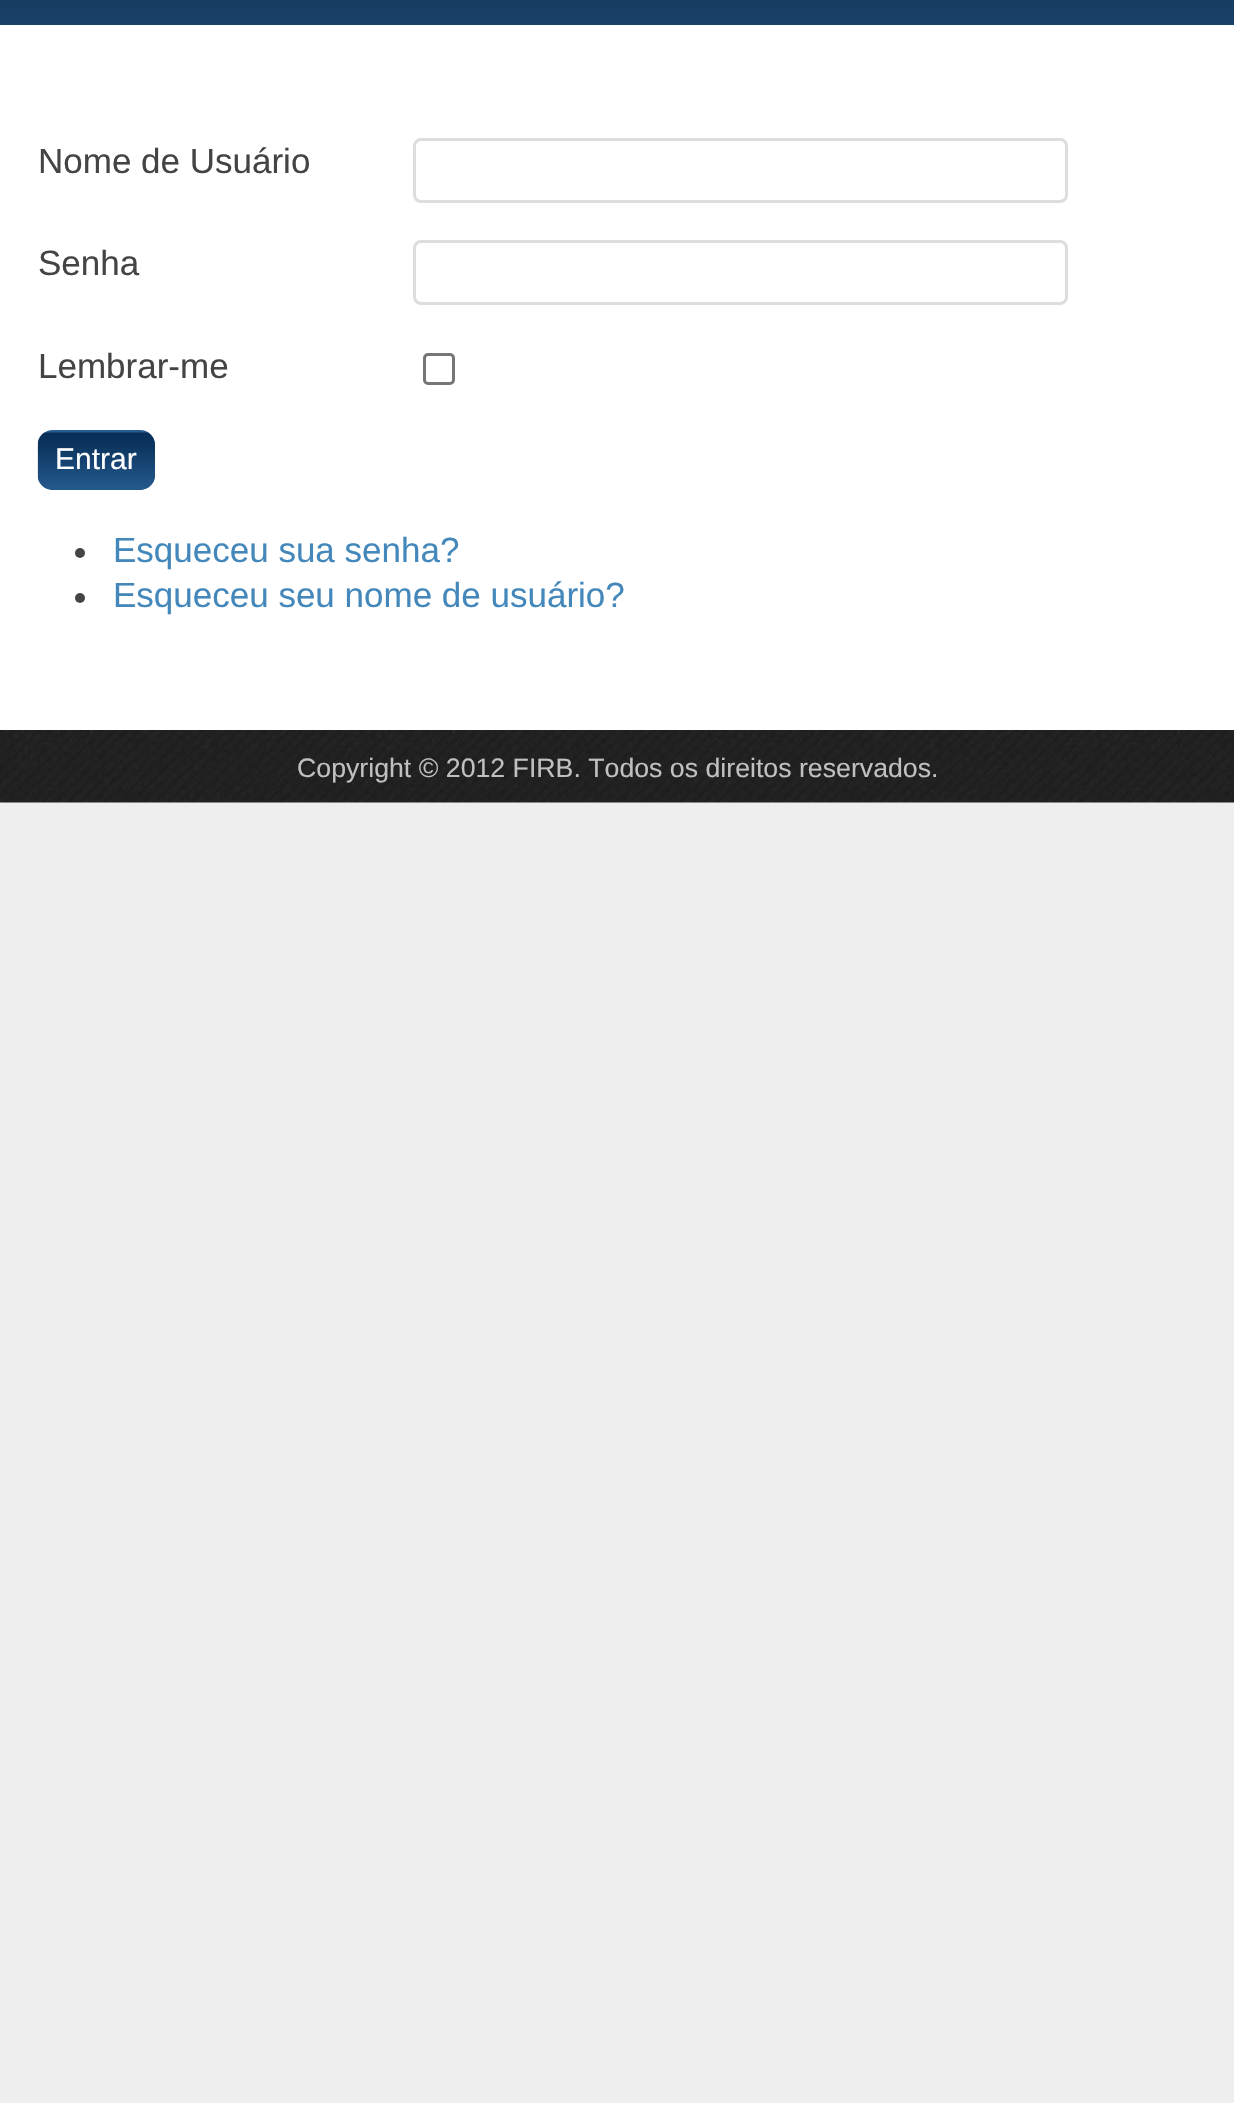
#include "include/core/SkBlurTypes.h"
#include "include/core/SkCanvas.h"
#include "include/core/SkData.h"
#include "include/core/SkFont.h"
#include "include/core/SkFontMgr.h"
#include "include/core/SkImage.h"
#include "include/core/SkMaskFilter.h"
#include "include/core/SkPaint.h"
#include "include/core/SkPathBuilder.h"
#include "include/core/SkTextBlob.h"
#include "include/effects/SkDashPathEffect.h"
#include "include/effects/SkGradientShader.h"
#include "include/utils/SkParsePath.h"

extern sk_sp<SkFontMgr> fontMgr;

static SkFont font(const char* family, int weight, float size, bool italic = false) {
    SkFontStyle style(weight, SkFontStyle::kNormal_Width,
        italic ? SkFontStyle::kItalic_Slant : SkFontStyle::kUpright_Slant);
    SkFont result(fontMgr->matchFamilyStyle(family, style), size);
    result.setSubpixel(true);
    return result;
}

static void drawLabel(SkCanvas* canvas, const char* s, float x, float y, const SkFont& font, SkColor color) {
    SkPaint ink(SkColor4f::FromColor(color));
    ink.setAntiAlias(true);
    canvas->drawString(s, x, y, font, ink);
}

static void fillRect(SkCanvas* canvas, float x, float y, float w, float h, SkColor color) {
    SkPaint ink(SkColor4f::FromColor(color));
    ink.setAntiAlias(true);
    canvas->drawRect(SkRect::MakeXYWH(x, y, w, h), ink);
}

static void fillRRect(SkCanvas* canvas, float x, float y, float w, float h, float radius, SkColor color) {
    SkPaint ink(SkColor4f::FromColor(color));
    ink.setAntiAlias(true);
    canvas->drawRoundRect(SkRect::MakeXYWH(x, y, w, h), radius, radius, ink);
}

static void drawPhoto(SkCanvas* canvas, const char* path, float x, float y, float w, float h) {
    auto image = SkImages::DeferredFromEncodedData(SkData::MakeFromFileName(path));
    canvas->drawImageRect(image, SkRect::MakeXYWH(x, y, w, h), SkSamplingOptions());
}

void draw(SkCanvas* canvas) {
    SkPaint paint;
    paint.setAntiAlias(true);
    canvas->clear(0xFFEEEEEE);
    drawPhoto(canvas, "assets/img1.png", 0, 0, 1234, 25);
    fillRect(canvas, 0, 25, 1234, 705, 0xFFFFFFFF);
    SkFont font1 = font("Liberation Sans", 400, 35);
    drawLabel(canvas, "Nome de Usuário", 38, 173, font1, 0xFF444444);
    paint.setStroke(true);
    paint.setStrokeWidth(3);
    paint.setColor(0xFFDDDDDD);
    canvas->drawRoundRect(SkRect::MakeXYWH(414.5f, 139.5f, 652, 62), 6.5f, 6.5f, paint);
    drawLabel(canvas, "Senha", 38, 275, font1, 0xFF444444);
    canvas->drawRoundRect(SkRect::MakeXYWH(414.5f, 241.5f, 652, 62), 6.5f, 6.5f, paint);
    drawLabel(canvas, "Lembrar-me", 38, 378, font1, 0xFF444444);
    paint.setColor(0xFF767676);
    canvas->drawRoundRect(SkRect::MakeXYWH(424.5f, 354.5f, 29, 29), 3.5f, 3.5f, paint);
    fillRRect(canvas, 38, 430, 117, 60, 15, 0xFF265C91);
    drawPhoto(canvas, "assets/img2.png", 37, 432, 118, 58);
    SkFont font2 = font("Liberation Sans", 400, 30);
    drawLabel(canvas, "Entrar", 55, 469, font2, 0xFFFFFFFF);
    paint.setStroke(false);
    paint.setColor(0xFF444444);
    canvas->drawCircle(80, 553, 5, paint);
    drawLabel(canvas, "Esqueceu sua senha?", 113, 562, font1, 0xFF4488BB);
    canvas->drawCircle(80, 598, 5, paint);
    drawLabel(canvas, "Esqueceu seu nome de usuário?", 113, 607, font1, 0xFF4488BB);
    drawPhoto(canvas, "assets/img3.png", 0, 730, 1234, 73);
    SkFont font3 = font("Liberation Sans", 400, 26.7f);
    drawLabel(canvas, "Copyright © 2012 FIRB. Todos os direitos reservados.", 297, 777, font3, 0xFFC0C0C0);
}
